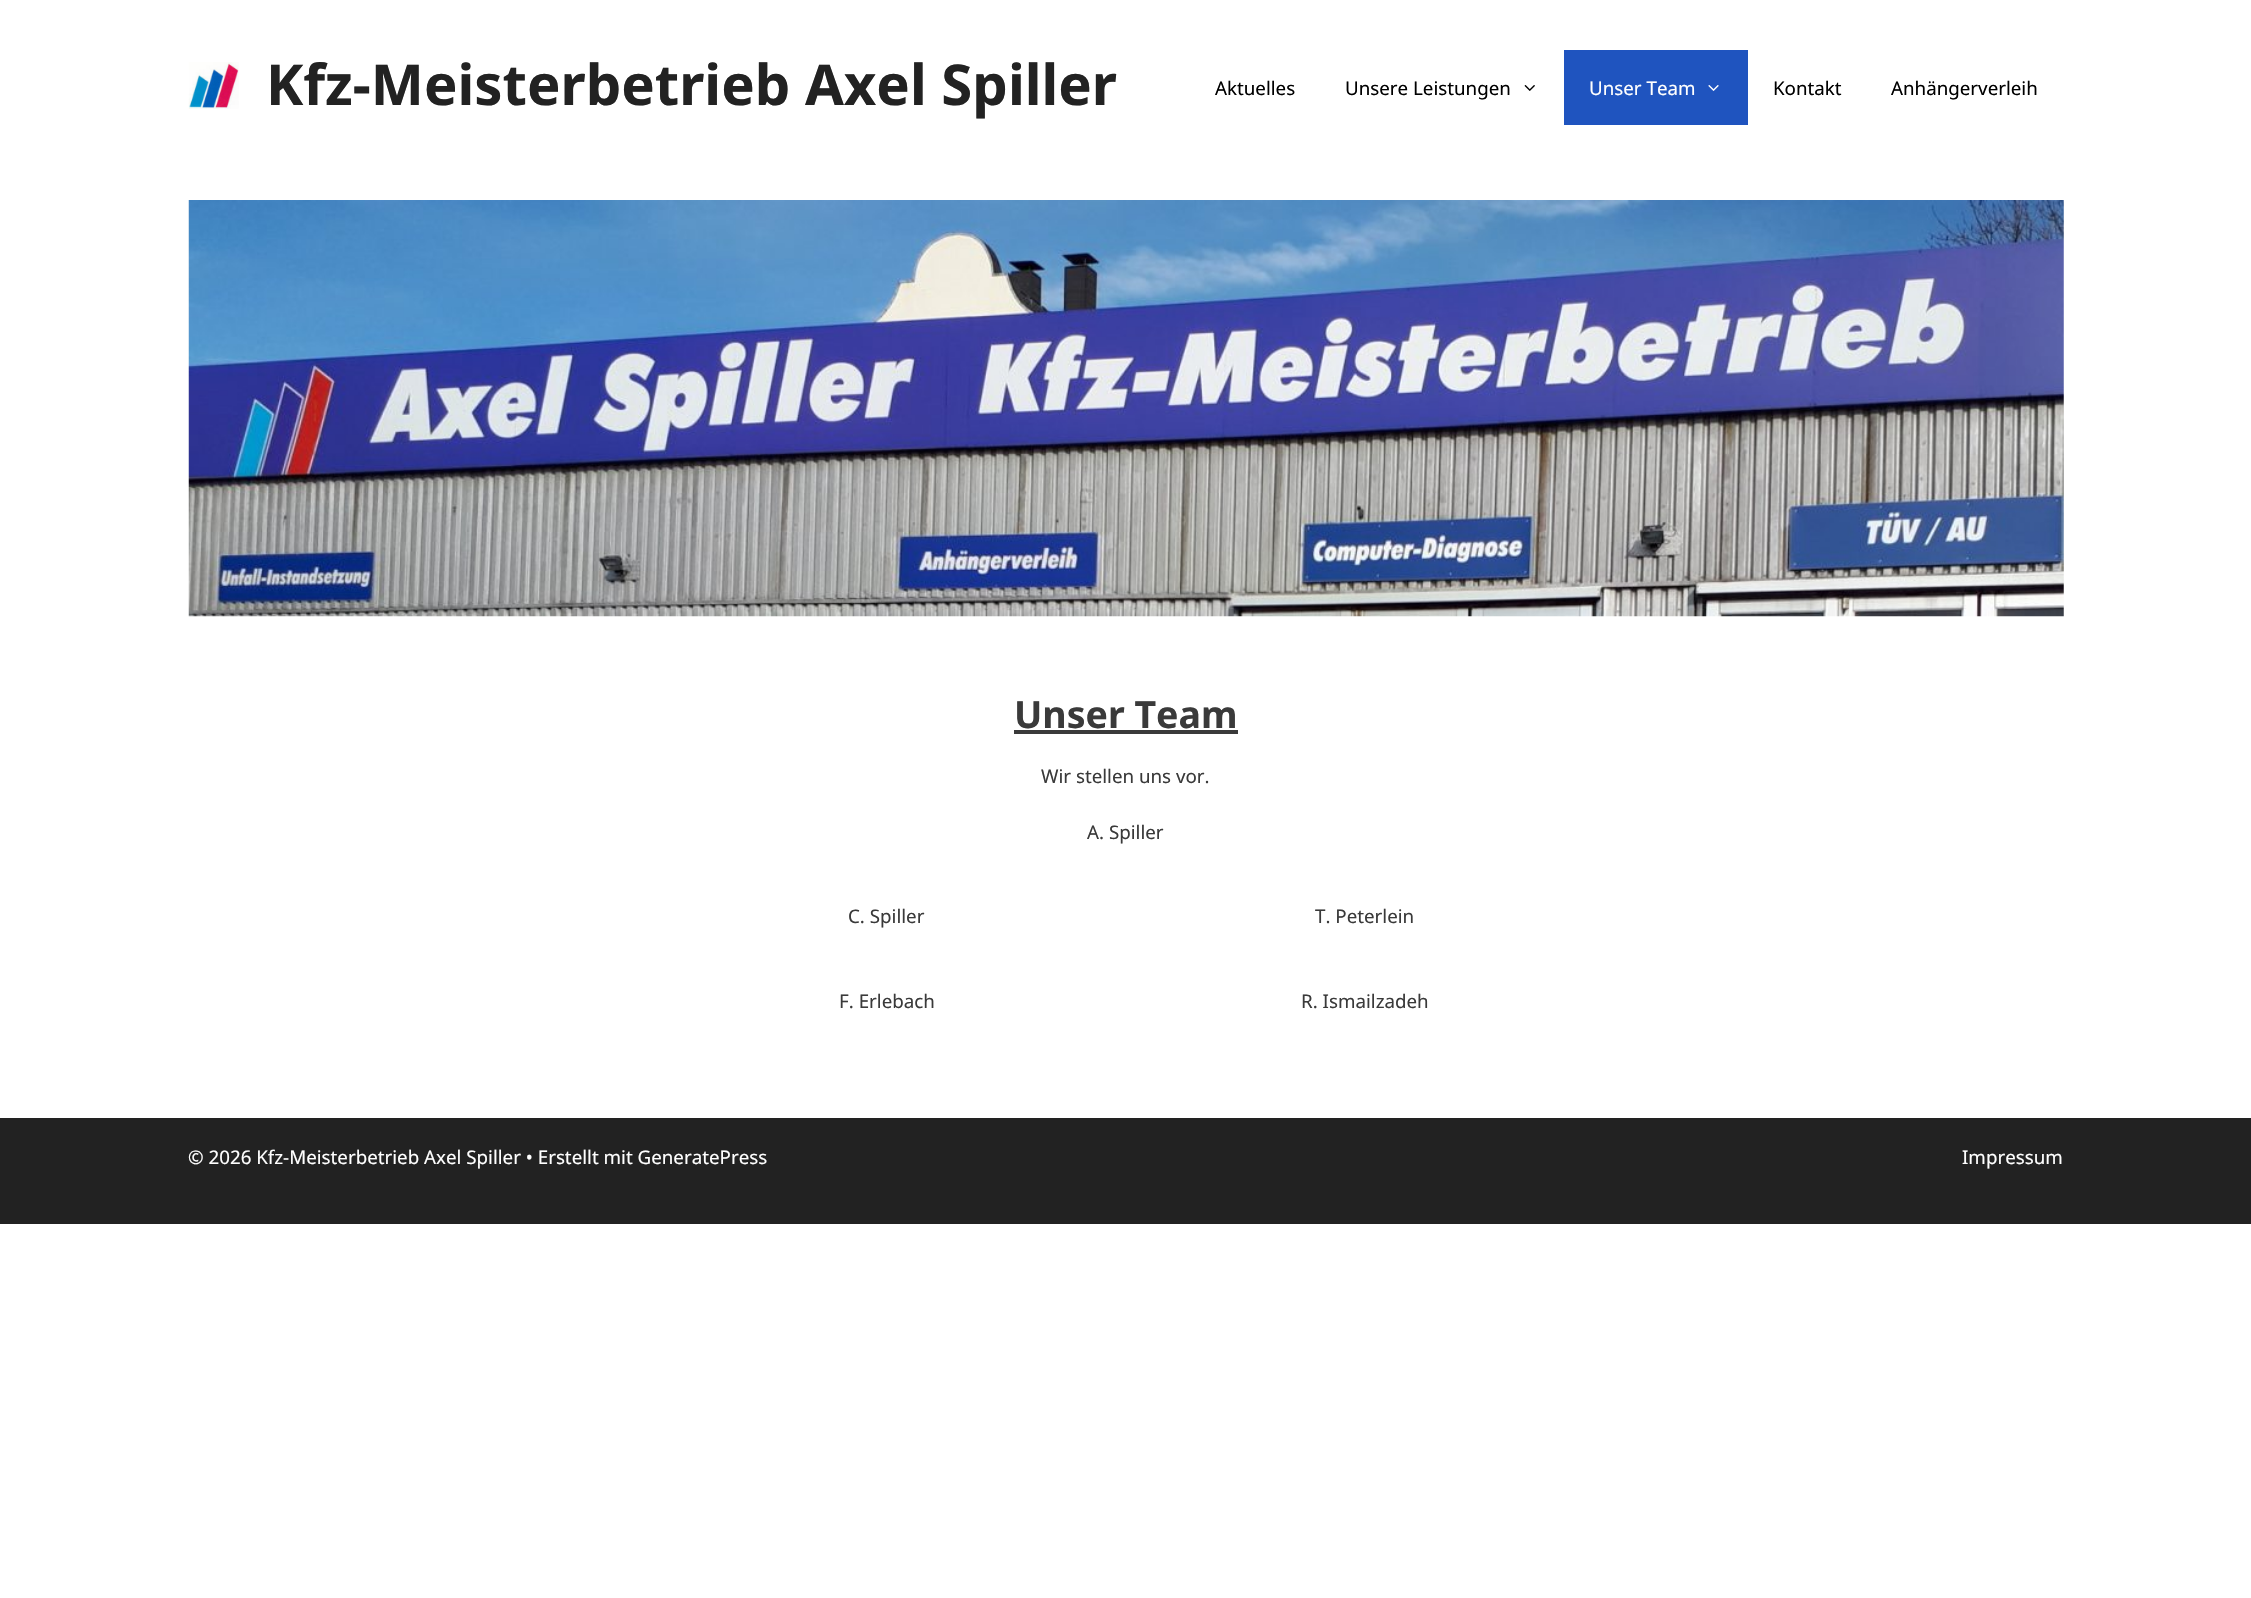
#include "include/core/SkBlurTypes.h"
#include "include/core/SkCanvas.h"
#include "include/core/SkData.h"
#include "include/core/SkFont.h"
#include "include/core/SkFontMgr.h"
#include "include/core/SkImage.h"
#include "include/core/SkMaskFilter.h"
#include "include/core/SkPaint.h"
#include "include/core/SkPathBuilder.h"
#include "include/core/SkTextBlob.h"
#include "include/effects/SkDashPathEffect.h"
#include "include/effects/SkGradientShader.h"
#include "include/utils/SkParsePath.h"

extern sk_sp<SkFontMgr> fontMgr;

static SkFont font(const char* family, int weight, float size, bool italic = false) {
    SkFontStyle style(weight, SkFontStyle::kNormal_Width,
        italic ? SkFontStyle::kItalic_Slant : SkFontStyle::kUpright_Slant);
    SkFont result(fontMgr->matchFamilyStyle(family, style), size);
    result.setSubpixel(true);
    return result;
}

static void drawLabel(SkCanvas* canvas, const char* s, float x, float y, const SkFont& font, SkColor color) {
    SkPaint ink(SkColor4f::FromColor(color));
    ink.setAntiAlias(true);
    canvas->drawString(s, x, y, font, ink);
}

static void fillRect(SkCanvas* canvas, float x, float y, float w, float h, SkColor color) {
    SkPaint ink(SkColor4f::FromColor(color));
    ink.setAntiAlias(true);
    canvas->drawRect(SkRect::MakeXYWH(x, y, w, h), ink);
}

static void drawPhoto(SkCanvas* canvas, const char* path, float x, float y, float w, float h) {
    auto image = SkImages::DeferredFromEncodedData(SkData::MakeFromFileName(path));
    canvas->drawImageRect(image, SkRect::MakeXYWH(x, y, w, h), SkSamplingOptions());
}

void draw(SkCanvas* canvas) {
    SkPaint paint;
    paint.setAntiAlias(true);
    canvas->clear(0xFFFFFFFF);
    drawPhoto(canvas, "assets/img1.png", 188, 62, 51, 47);
    SkFont font1 = font("Noto Sans", 700, 56.25f);
    drawLabel(canvas, "Kfz-Meisterbetrieb Axel Spiller", 266, 105, font1, 0xFF222222);
    SkFont font2 = font("Noto Sans", 400, 18.75f);
    drawLabel(canvas, "Aktuelles", 1215, 95, font2, 0xFF000000);
    drawLabel(canvas, "Unsere Leistungen", 1345, 95, font2, 0xFF000000);
    drawPhoto(canvas, "assets/img2.png", 1524, 85, 11, 6);
    fillRect(canvas, 1564, 50, 184, 75, 0xFF1F54BF);
    drawLabel(canvas, "Unser Team", 1589, 95, font2, 0xFFFFFFFF);
    drawPhoto(canvas, "assets/img3.png", 1708, 85, 11, 6);
    drawLabel(canvas, "Kontakt", 1773, 95, font2, 0xFF000000);
    drawLabel(canvas, "Anhängerverleih", 1891, 95, font2, 0xFF000000);
    drawPhoto(canvas, "assets/img4.png", 188, 200, 1876, 417);
    SkFont font3 = font("Noto Sans", 700, 37.5f);
    drawLabel(canvas, "Unser Team", 1014, 728, font3, 0xFF3A3A3A);
    fillRect(canvas, 1014, 730, 224, 4, 0xFF3A3A3A);
    drawLabel(canvas, "Wir stellen uns vor.", 1041, 783, font2, 0xFF3A3A3A);
    drawLabel(canvas, "A. Spiller", 1087, 839, font2, 0xFF3A3A3A);
    drawLabel(canvas, "C. Spiller", 848, 923, font2, 0xFF3A3A3A);
    drawLabel(canvas, "T. Peterlein", 1315, 923, font2, 0xFF3A3A3A);
    drawLabel(canvas, "F. Erlebach", 839, 1008, font2, 0xFF3A3A3A);
    drawLabel(canvas, "R. Ismailzadeh", 1301, 1008, font2, 0xFF3A3A3A);
    fillRect(canvas, 0, 1118, 2251, 106, 0xFF222222);
    drawLabel(canvas, "© 2026 Kfz-Meisterbetrieb Axel Spiller • Erstellt mit GeneratePress", 188, 1164, font2, 0xFFFFFFFF);
    drawLabel(canvas, "Impressum", 1962, 1164, font2, 0xFFFFFFFF);
}
